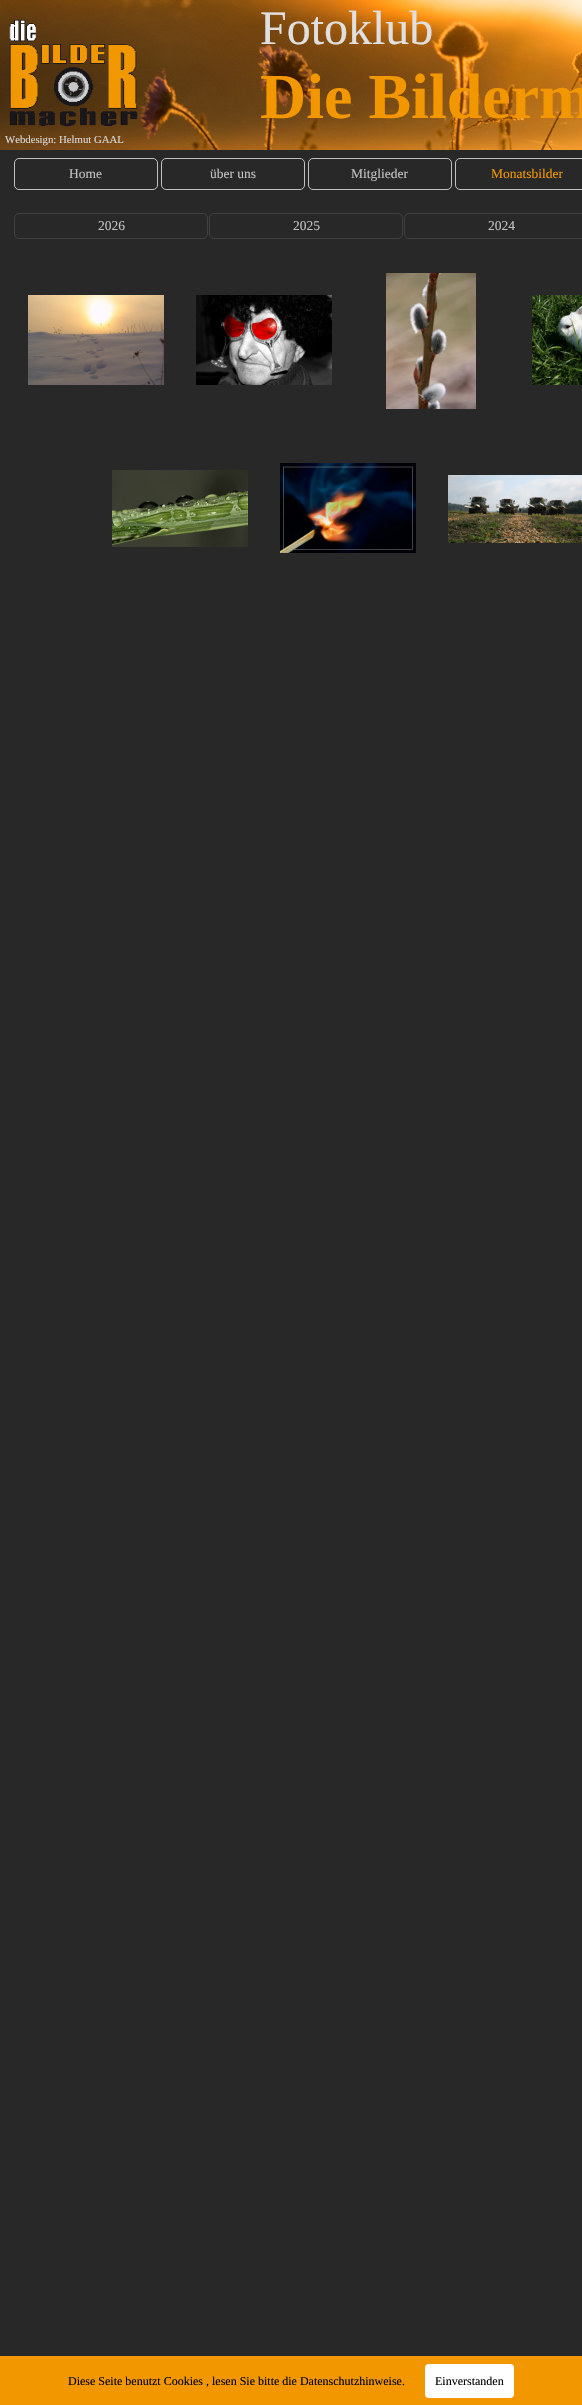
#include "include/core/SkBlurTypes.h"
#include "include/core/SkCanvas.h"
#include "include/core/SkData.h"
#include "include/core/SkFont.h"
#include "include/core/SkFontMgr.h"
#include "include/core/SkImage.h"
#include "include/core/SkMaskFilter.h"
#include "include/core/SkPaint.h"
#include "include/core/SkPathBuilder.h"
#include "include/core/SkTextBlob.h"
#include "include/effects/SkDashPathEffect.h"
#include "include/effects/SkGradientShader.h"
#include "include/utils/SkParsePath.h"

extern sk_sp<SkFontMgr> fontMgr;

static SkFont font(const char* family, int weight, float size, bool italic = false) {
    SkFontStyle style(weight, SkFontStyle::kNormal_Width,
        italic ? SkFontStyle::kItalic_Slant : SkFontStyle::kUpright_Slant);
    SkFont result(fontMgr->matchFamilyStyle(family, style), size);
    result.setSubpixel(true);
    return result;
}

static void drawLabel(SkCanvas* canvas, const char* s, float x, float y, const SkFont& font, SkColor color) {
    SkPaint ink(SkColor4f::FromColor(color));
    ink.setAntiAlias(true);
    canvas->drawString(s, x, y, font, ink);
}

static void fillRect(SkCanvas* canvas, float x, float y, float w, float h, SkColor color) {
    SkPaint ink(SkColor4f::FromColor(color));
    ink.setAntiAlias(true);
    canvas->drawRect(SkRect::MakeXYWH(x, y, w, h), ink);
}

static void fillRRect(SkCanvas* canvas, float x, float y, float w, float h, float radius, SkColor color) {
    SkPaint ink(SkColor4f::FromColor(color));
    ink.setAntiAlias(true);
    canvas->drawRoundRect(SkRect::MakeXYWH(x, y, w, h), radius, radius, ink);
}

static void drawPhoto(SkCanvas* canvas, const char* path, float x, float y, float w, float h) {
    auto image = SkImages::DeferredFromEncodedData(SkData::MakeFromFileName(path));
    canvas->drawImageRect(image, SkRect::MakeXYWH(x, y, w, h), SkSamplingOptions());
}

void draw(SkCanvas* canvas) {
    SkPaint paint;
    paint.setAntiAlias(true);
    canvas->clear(0xFF282828);
    drawPhoto(canvas, "assets/img1.png", 0, 0, 582, 150);
    drawPhoto(canvas, "assets/img2.png", 9, 19, 129, 107);
    SkFont font1 = font("Liberation Serif", 400, 48);
    drawLabel(canvas, "Fotoklub", 260, 44, font1, 0xFFE0E0E0);
    SkFont font2 = font("Liberation Serif", 700, 64);
    drawLabel(canvas, "Die Bilderm", 260, 118, font2, 0xFFF29700);
    SkFont font3 = font("Liberation Serif", 400, 10.75f);
    drawLabel(canvas, "Webdesign: Helmut GAAL", 5, 143, font3, 0xFFD9D9D9);
    paint.setStroke(true);
    paint.setStrokeWidth(1);
    paint.setColor(0xFFC0C0C0);
    canvas->drawRoundRect(SkRect::MakeXYWH(14.5f, 158.5f, 143, 31), 4.5f, 4.5f, paint);
    SkFont font4 = font("Liberation Serif", 400, 13.5f);
    drawLabel(canvas, "Home", 69, 178, font4, 0xFFC0C0C0);
    canvas->drawRoundRect(SkRect::MakeXYWH(161.5f, 158.5f, 143, 31), 4.5f, 4.5f, paint);
    drawLabel(canvas, "über uns", 210, 178, font4, 0xFFC0C0C0);
    canvas->drawRoundRect(SkRect::MakeXYWH(308.5f, 158.5f, 143, 31), 4.5f, 4.5f, paint);
    drawLabel(canvas, "Mitglieder", 351, 178, font4, 0xFFC0C0C0);
    canvas->drawRoundRect(SkRect::MakeXYWH(455.5f, 158.5f, 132, 31), 4.5f, 4.5f, paint);
    drawLabel(canvas, "Monatsbilder", 491, 178, font4, 0xFFF29700);
    paint.setColor(0xFF404040);
    canvas->drawRoundRect(SkRect::MakeXYWH(14.5f, 213.5f, 193, 25), 4.5f, 4.5f, paint);
    drawLabel(canvas, "2026", 98, 230, font4, 0xFFC0C0C0);
    canvas->drawRoundRect(SkRect::MakeXYWH(209.5f, 213.5f, 193, 25), 4.5f, 4.5f, paint);
    drawLabel(canvas, "2025", 293, 230, font4, 0xFFC0C0C0);
    canvas->drawRoundRect(SkRect::MakeXYWH(404.5f, 213.5f, 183, 25), 4.5f, 4.5f, paint);
    drawLabel(canvas, "2024", 488, 230, font4, 0xFFC0C0C0);
    drawPhoto(canvas, "assets/img3.png", 28, 295, 136, 90);
    drawPhoto(canvas, "assets/img4.png", 196, 295, 136, 90);
    drawPhoto(canvas, "assets/img5.png", 386, 273, 90, 136);
    drawPhoto(canvas, "assets/img6.png", 532, 295, 50, 90);
    drawPhoto(canvas, "assets/img7.png", 112, 470, 136, 77);
    drawPhoto(canvas, "assets/img8.png", 280, 463, 136, 90);
    drawPhoto(canvas, "assets/img9.png", 448, 475, 134, 68);
    fillRect(canvas, 0, 2356, 582, 49, 0xFFF29700);
    SkFont font5 = font("Liberation Serif", 400, 12);
    drawLabel(canvas, "Diese Seite benutzt Cookies , lesen Sie bitte die Datenschutzhinweise.", 68, 2385, font5, 0xFF000000);
    fillRRect(canvas, 425, 2364, 89, 34, 4, 0xFFFFFFFF);
    drawLabel(canvas, "Einverstanden", 435, 2385, font5, 0xFF000000);
}
